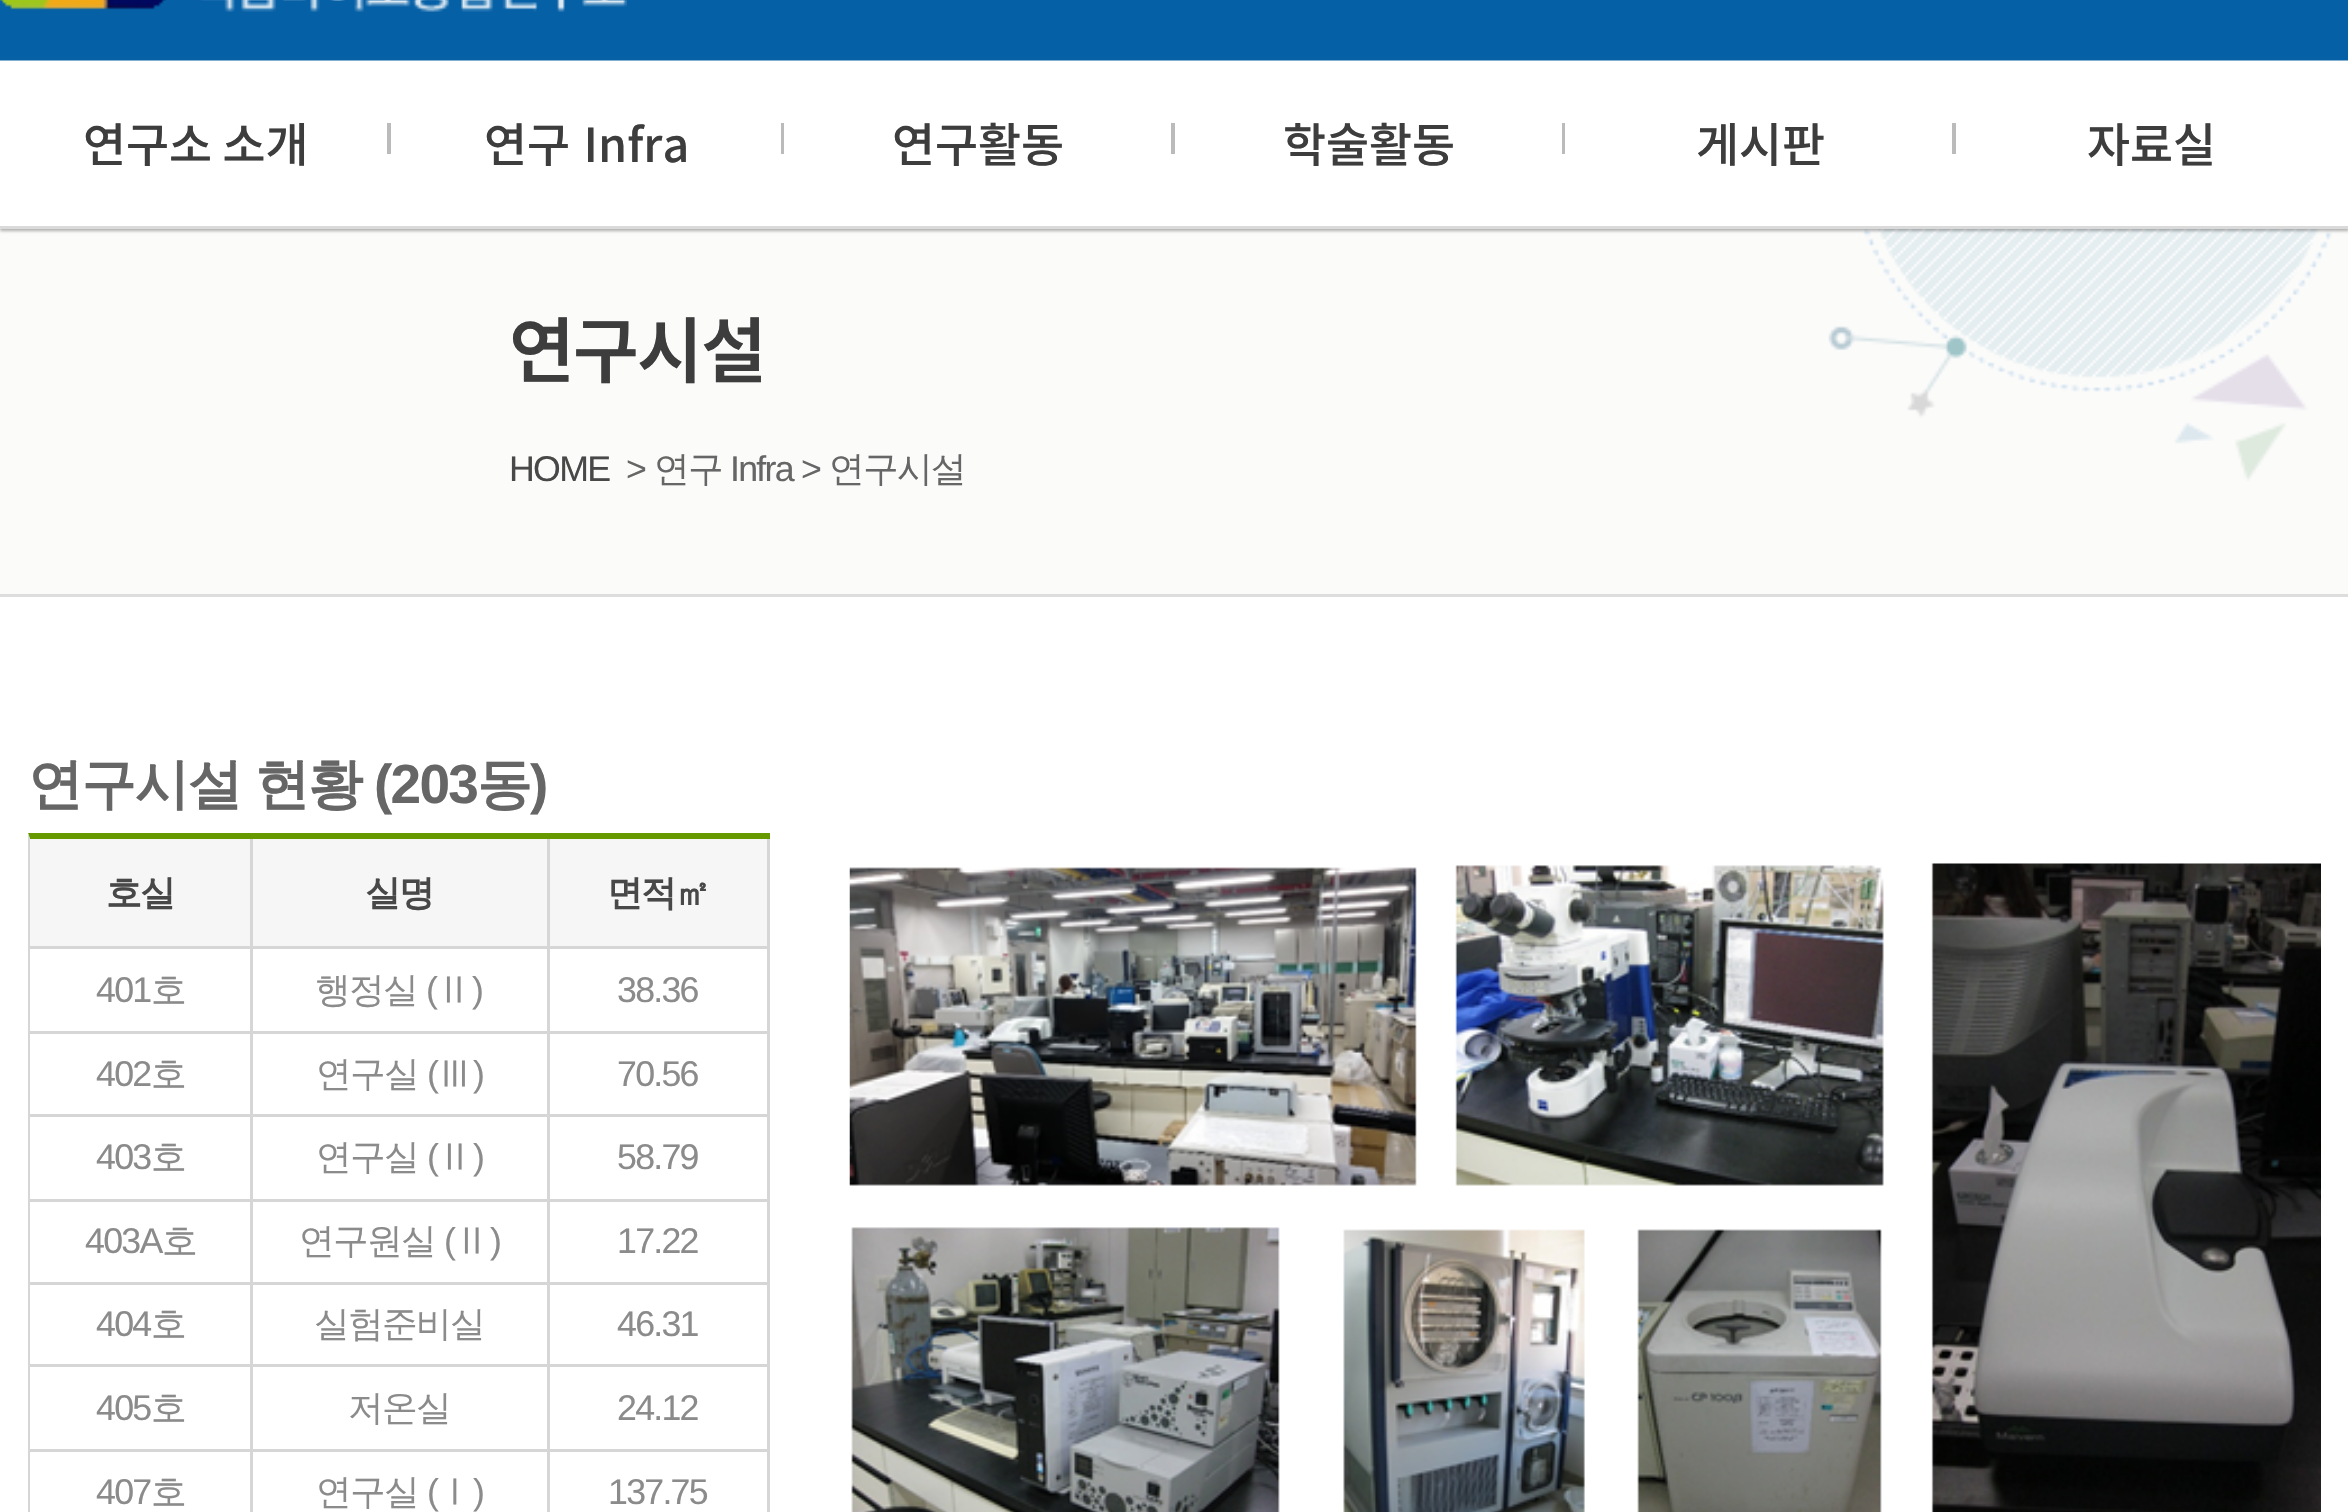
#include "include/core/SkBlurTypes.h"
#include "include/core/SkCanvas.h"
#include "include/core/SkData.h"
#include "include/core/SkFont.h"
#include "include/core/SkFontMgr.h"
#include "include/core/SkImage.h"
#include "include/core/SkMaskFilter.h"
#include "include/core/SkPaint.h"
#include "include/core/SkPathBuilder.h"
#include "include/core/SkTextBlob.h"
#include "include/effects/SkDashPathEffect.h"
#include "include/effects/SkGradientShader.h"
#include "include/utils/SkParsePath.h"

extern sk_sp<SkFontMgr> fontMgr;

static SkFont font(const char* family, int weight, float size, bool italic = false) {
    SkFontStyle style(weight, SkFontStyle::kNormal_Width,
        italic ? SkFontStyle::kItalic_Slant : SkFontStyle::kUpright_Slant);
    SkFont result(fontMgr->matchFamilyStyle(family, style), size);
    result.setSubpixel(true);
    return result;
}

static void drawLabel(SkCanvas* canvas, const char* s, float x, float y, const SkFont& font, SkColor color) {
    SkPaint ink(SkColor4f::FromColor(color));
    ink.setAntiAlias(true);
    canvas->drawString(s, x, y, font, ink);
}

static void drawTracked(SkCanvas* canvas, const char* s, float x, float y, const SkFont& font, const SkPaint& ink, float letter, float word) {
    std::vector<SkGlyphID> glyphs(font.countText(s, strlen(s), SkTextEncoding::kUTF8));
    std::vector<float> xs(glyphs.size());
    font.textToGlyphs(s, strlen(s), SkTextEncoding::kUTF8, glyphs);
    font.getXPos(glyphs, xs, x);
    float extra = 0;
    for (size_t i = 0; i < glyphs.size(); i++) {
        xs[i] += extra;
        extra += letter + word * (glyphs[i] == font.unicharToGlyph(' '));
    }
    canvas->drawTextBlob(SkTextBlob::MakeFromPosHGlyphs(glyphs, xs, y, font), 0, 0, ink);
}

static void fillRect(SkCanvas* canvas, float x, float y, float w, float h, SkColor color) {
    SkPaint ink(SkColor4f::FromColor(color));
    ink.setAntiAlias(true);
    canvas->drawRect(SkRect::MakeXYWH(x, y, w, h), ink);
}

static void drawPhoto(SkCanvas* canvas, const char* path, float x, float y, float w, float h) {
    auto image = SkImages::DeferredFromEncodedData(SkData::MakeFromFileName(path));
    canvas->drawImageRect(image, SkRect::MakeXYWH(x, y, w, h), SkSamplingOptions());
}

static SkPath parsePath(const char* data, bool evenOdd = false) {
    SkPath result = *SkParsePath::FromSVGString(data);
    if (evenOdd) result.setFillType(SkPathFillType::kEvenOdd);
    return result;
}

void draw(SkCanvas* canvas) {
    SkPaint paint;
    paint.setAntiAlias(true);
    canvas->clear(0xFFFFFFFF);
    fillRect(canvas, 0, 0, 2348, 61, 0xFF0560A6);
    drawPhoto(canvas, "assets/img1.png", 0, 0, 627, 12);
    fillRect(canvas, 0, 229, 2348, 365, 0xFFFBFBFA);
    drawPhoto(canvas, "assets/img3.png", 1828, 229, 504, 252);
    paint.setColor(0x4D000000);
    paint.setMaskFilter(SkMaskFilter::MakeBlur(kNormal_SkBlurStyle, 1.5f));
    canvas->drawRect(SkRect::MakeXYWH(0, 63, 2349, 168), paint);
    paint.setMaskFilter(nullptr);
    drawPhoto(canvas, "assets/img2.png", 0, 60, 2348, 1);
    fillRect(canvas, 0, 61, 2348, 165, 0xFFFFFFFF);
    fillRect(canvas, 0, 226, 2348, 3, 0xFFDADADA);
    SkFont font1 = font("Noto Sans KR", 500, 46.75f);
    drawLabel(canvas, "연구소 소개", 83, 162, font1, 0xFF3D3D3D);
    fillRect(canvas, 387, 123, 4, 31, 0xFFBBBBBB);
    paint.setColor(0xFF3D3D3D);
    drawTracked(canvas, "연구 Infra", 484, 162, font1, paint, 0, 3);
    fillRect(canvas, 781, 123, 3, 31, 0xFFBBBBBB);
    drawLabel(canvas, "연구활동", 892, 162, font1, 0xFF3D3D3D);
    fillRect(canvas, 1171, 123, 4, 31, 0xFFBBBBBB);
    drawLabel(canvas, "학술활동", 1283, 162, font1, 0xFF3D3D3D);
    fillRect(canvas, 1562, 123, 3, 31, 0xFFBBBBBB);
    drawLabel(canvas, "게시판", 1696, 162, font1, 0xFF3D3D3D);
    fillRect(canvas, 1952, 123, 4, 31, 0xFFBBBBBB);
    drawLabel(canvas, "자료실", 2087, 162, font1, 0xFF3D3D3D);
    fillRect(canvas, 0, 594, 2348, 3, 0xFFDDDDDD);
    SkFont font2 = font("Noto Sans KR", 600, 71.5f);
    drawTracked(canvas, "연구시설", 509, 377, font2, paint, -1.75f, 0);
    SkFont font3 = font("Liberation Sans", 400, 35.75f);
    paint.setColor(0xFF484848);
    drawTracked(canvas, "HOME", 509, 481, font3, paint, -1.75f, 0);
    paint.setColor(0xFF666666);
    drawTracked(canvas, ">", 626, 481, font3, paint, -1.75f, 0);
    SkFont font4 = font("WenQuanYi Zen Hei", 500, 35.75f);
    drawTracked(canvas, "연구", 654, 481, font4, paint, -1.75f, 0);
    drawTracked(canvas, "Infra >", 730, 481, font3, paint, -1.75f, 0);
    drawTracked(canvas, "연구시설", 829, 481, font4, paint, -1.75f, 0);
    SkFont font5 = font("WenQuanYi Zen Hei", 700, 55);
    drawTracked(canvas, "연구시설 현황", 28, 803, font5, paint, -1.75f, -1);
    SkFont font6 = font("Liberation Sans", 700, 55);
    drawTracked(canvas, "(203", 374, 803, font6, paint, -1.75f, 0);
    drawTracked(canvas, "동", 477, 803, font5, paint, -1.75f, 0);
    drawTracked(canvas, ")", 530, 803, font6, paint, -1.75f, 0);
    paint.setColor(0xFF669900);
    canvas->drawPath(parsePath("M28 833H770V839H30Z"), paint);
    paint.setColor(0xFFD6D6D6);
    canvas->drawPath(parsePath("M28 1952V833L30 839V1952Z"), paint);
    fillRect(canvas, 30, 839, 220, 107, 0xFFF6F6F6);
    fillRect(canvas, 547, 1449, 3, 63, 0xFFD6D6D6);
    fillRect(canvas, 767, 839, 3, 673, 0xFFD6D6D6);
    fillRect(canvas, 547, 1449, 223, 3, 0xFFD6D6D6);
    fillRect(canvas, 547, 1364, 3, 88, 0xFFD6D6D6);
    fillRect(canvas, 547, 1364, 223, 3, 0xFFD6D6D6);
    fillRect(canvas, 547, 1282, 3, 85, 0xFFD6D6D6);
    fillRect(canvas, 547, 1282, 223, 3, 0xFFD6D6D6);
    fillRect(canvas, 547, 1199, 3, 85, 0xFFD6D6D6);
    fillRect(canvas, 547, 1199, 223, 3, 0xFFD6D6D6);
    fillRect(canvas, 547, 1114, 3, 88, 0xFFD6D6D6);
    fillRect(canvas, 547, 1114, 223, 3, 0xFFD6D6D6);
    fillRect(canvas, 547, 1031, 3, 86, 0xFFD6D6D6);
    fillRect(canvas, 547, 1031, 223, 3, 0xFFD6D6D6);
    fillRect(canvas, 547, 946, 3, 88, 0xFFD6D6D6);
    fillRect(canvas, 547, 946, 223, 3, 0xFFD6D6D6);
    fillRect(canvas, 547, 839, 3, 110, 0xFFD6D6D6);
    fillRect(canvas, 250, 1449, 3, 63, 0xFFD6D6D6);
    fillRect(canvas, 250, 1449, 300, 3, 0xFFD6D6D6);
    fillRect(canvas, 250, 1364, 3, 88, 0xFFD6D6D6);
    fillRect(canvas, 250, 1364, 300, 3, 0xFFD6D6D6);
    fillRect(canvas, 250, 1282, 3, 85, 0xFFD6D6D6);
    fillRect(canvas, 250, 1282, 300, 3, 0xFFD6D6D6);
    fillRect(canvas, 250, 1199, 3, 85, 0xFFD6D6D6);
    fillRect(canvas, 250, 1199, 300, 3, 0xFFD6D6D6);
    fillRect(canvas, 250, 1114, 3, 88, 0xFFD6D6D6);
    fillRect(canvas, 250, 1114, 300, 3, 0xFFD6D6D6);
    fillRect(canvas, 250, 1031, 3, 86, 0xFFD6D6D6);
    fillRect(canvas, 250, 1031, 300, 3, 0xFFD6D6D6);
    fillRect(canvas, 250, 946, 3, 88, 0xFFD6D6D6);
    fillRect(canvas, 250, 946, 300, 3, 0xFFD6D6D6);
    fillRect(canvas, 250, 839, 3, 110, 0xFFD6D6D6);
    fillRect(canvas, 30, 946, 223, 3, 0xFFD6D6D6);
    SkFont font7 = font("WenQuanYi Zen Hei", 700, 35.75f);
    paint.setColor(0xFF484848);
    drawTracked(canvas, "호실", 106, 905, font7, paint, -1.75f, 0);
    fillRect(canvas, 253, 839, 294, 107, 0xFFF6F6F6);
    drawTracked(canvas, "실명", 365, 905, font7, paint, -1.75f, 0);
    fillRect(canvas, 550, 839, 217, 107, 0xFFF6F6F6);
    drawTracked(canvas, "면적㎡", 607, 905, font7, paint, -1.75f, 0);
    fillRect(canvas, 30, 1031, 223, 3, 0xFFD6D6D6);
    paint.setColor(0xFF8B8B8B);
    drawTracked(canvas, "401", 96, 1002, font3, paint, -1.75f, 0);
    drawTracked(canvas, "호", 151, 1002, font4, paint, -1.75f, 0);
    drawTracked(canvas, "행정실", 315, 1002, font4, paint, -1.75f, 0);
    drawTracked(canvas, "(", 426, 1002, font3, paint, -1.75f, 0);
    drawLabel(canvas, "Ⅱ", 436, 1002, font4, 0xFF8B8B8B);
    drawLabel(canvas, ")", 472, 1002, font3, 0xFF8B8B8B);
    drawTracked(canvas, "38.36", 617, 1002, font3, paint, -1.75f, 0);
    fillRect(canvas, 30, 1114, 223, 3, 0xFFD6D6D6);
    drawTracked(canvas, "402", 96, 1086, font3, paint, -1.75f, 0);
    drawTracked(canvas, "호", 151, 1086, font4, paint, -1.75f, 0);
    drawTracked(canvas, "연구실", 316, 1086, font4, paint, -1.75f, 0);
    drawTracked(canvas, "(", 427, 1086, font3, paint, -1.75f, 0);
    drawLabel(canvas, "Ⅲ", 437, 1086, font4, 0xFF8B8B8B);
    drawTracked(canvas, ")", 473, 1086, font3, paint, -1.75f, 0);
    drawTracked(canvas, "70.56", 617, 1086, font3, paint, -1.75f, 0);
    fillRect(canvas, 30, 1199, 223, 3, 0xFFD6D6D6);
    drawTracked(canvas, "403", 96, 1169, font3, paint, -1.75f, 0);
    drawTracked(canvas, "호", 151, 1169, font4, paint, -1.75f, 0);
    drawTracked(canvas, "연구실", 316, 1169, font4, paint, -1.75f, 0);
    drawTracked(canvas, "(", 427, 1169, font3, paint, -1.75f, 0);
    drawLabel(canvas, "Ⅱ", 437, 1169, font4, 0xFF8B8B8B);
    drawTracked(canvas, ")", 473, 1169, font3, paint, -1.75f, 0);
    drawTracked(canvas, "58.79", 617, 1169, font3, paint, -1.75f, 0);
    fillRect(canvas, 30, 1282, 223, 3, 0xFFD6D6D6);
    drawTracked(canvas, "403A", 85, 1253, font3, paint, -1.75f, 0);
    drawTracked(canvas, "호", 162, 1253, font4, paint, -1.75f, 0);
    drawTracked(canvas, "연구원실", 299, 1253, font4, paint, -1.75f, 0);
    drawTracked(canvas, "(", 444, 1253, font3, paint, -1.75f, 0);
    drawLabel(canvas, "Ⅱ", 454, 1253, font4, 0xFF8B8B8B);
    drawTracked(canvas, ")", 490, 1253, font3, paint, -1.75f, 0);
    drawTracked(canvas, "17.22", 617, 1253, font3, paint, -1.75f, 0);
    fillRect(canvas, 30, 1364, 223, 3, 0xFFD6D6D6);
    drawTracked(canvas, "404", 96, 1336, font3, paint, -1.75f, 0);
    drawTracked(canvas, "호", 151, 1336, font4, paint, -1.75f, 0);
    drawTracked(canvas, "실험준비실", 314, 1336, font4, paint, -1.75f, 0);
    drawTracked(canvas, "46.31", 617, 1336, font3, paint, -1.75f, 0);
    fillRect(canvas, 30, 1449, 223, 3, 0xFFD6D6D6);
    drawTracked(canvas, "405", 96, 1420, font3, paint, -1.75f, 0);
    drawTracked(canvas, "호", 151, 1420, font4, paint, -1.75f, 0);
    drawTracked(canvas, "저온실", 348, 1420, font4, paint, -1.75f, 0);
    drawTracked(canvas, "24.12", 617, 1420, font3, paint, -1.75f, 0);
    drawTracked(canvas, "407", 96, 1504, font3, paint, -1.75f, 0);
    drawTracked(canvas, "호", 151, 1504, font4, paint, -1.75f, 0);
    drawTracked(canvas, "연구실", 316, 1504, font4, paint, -1.75f, 0);
    drawTracked(canvas, "(", 427, 1504, font3, paint, -1.75f, 0);
    drawLabel(canvas, "Ⅰ", 437, 1504, font4, 0xFF8B8B8B);
    drawTracked(canvas, ")", 473, 1504, font3, paint, -1.75f, 0);
    drawTracked(canvas, "137.75", 608, 1504, font3, paint, -1.75f, 0);
    drawPhoto(canvas, "assets/img4.png", 849, 863, 1472, 649);
}
